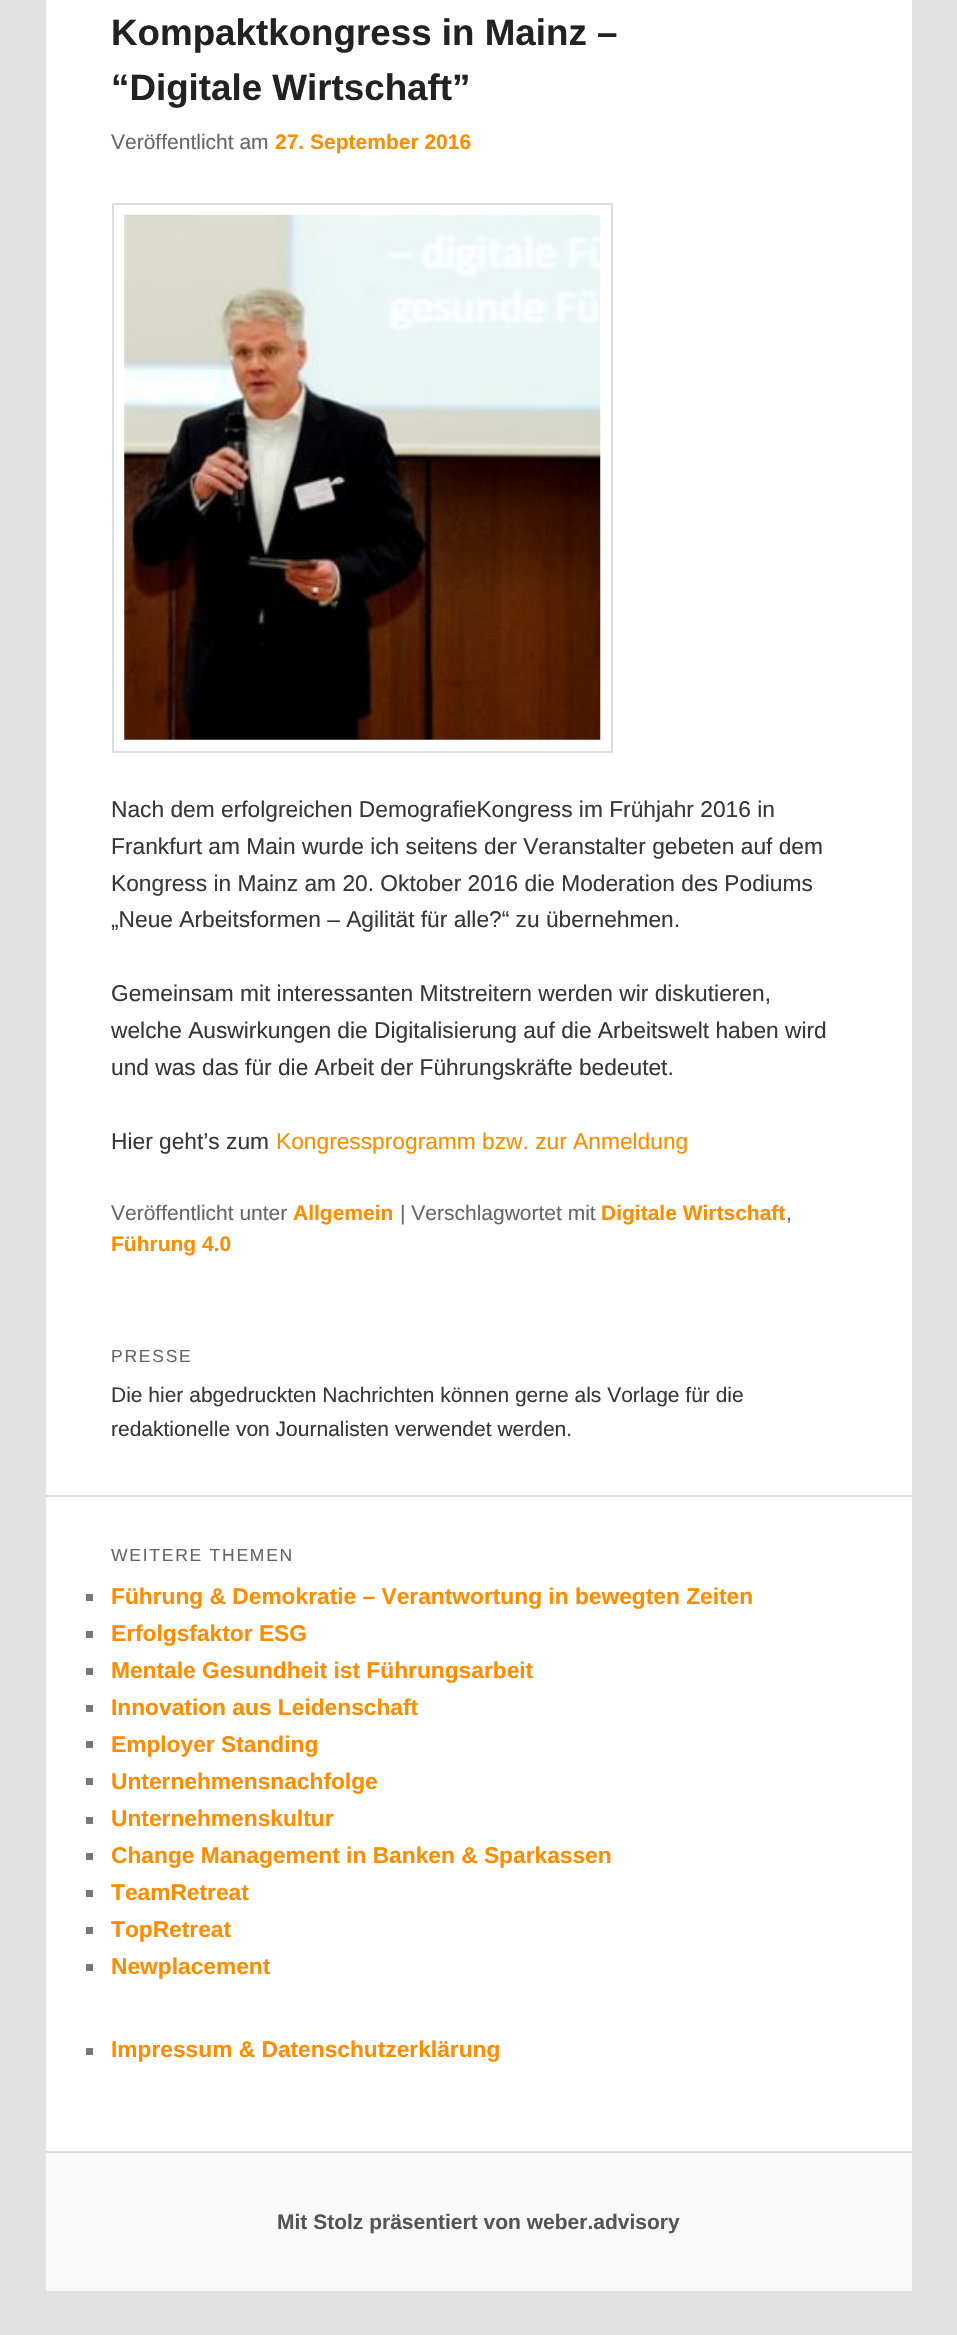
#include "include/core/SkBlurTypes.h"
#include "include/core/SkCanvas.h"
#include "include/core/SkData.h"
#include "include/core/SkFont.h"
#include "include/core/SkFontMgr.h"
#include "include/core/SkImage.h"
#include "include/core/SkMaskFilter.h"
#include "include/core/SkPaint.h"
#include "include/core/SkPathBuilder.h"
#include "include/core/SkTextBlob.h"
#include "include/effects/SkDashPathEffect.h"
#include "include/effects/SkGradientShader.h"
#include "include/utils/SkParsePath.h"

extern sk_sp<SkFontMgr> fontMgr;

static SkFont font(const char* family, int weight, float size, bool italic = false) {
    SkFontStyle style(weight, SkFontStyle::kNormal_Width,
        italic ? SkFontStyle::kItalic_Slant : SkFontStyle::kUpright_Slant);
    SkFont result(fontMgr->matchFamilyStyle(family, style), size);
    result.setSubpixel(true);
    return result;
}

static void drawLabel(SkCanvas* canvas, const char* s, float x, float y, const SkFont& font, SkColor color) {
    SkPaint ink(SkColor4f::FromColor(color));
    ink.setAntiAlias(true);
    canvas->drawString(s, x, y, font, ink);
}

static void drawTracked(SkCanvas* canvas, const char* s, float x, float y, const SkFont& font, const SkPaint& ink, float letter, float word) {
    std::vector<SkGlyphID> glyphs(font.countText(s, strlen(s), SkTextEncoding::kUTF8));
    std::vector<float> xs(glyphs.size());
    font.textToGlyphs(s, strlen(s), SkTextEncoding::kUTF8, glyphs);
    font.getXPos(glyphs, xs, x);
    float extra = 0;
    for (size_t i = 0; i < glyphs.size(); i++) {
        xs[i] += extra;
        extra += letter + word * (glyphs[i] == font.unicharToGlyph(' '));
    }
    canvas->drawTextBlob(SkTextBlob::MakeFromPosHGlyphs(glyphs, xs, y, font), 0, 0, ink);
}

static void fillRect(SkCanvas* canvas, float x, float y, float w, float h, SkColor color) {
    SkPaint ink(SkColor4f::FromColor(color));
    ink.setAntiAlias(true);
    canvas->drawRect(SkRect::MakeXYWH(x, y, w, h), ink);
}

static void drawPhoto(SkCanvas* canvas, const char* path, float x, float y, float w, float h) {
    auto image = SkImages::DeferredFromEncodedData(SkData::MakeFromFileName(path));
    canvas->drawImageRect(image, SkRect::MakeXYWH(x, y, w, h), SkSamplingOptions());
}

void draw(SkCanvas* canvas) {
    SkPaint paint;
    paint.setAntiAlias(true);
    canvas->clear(0xFFE2E2E2);
    fillRect(canvas, 46, 0, 866, 2151, 0xFFFFFFFF);
    SkFont font1 = font("Liberation Sans", 700, 36.75f);
    drawLabel(canvas, "Kompaktkongress in Mainz –", 111, 45, font1, 0xFF222222);
    drawLabel(canvas, "“Digitale Wirtschaft”", 111, 100, font1, 0xFF222222);
    SkFont font2 = font("Liberation Sans", 400, 21);
    drawLabel(canvas, "Veröffentlicht am", 111, 149, font2, 0xFF666666);
    SkFont font3 = font("Liberation Sans", 700, 21);
    drawLabel(canvas, "27. September 2016", 275, 149, font3, 0xFFFF8C00);
    paint.setStroke(true);
    paint.setStrokeWidth(2);
    paint.setColor(0xFFDDDDDD);
    canvas->drawRect(SkRect::MakeXYWH(113, 204, 499, 548), paint);
    drawPhoto(canvas, "assets/img1.png", 124, 214, 477, 526);
    SkFont font4 = font("Liberation Sans", 400, 22.75f);
    drawLabel(canvas, "Nach dem erfolgreichen DemografieKongress im Frühjahr 2016 in", 111, 817, font4, 0xFF373737);
    drawLabel(canvas, "Frankfurt am Main wurde ich seitens der Veranstalter gebeten auf dem", 111, 854, font4, 0xFF373737);
    drawLabel(canvas, "Kongress in Mainz am 20. Oktober 2016 die Moderation des Podiums", 111, 891, font4, 0xFF373737);
    drawLabel(canvas, "„Neue Arbeitsformen – Agilität für alle?“ zu übernehmen.", 111, 927, font4, 0xFF373737);
    drawLabel(canvas, "Gemeinsam mit interessanten Mitstreitern werden wir diskutieren,", 111, 1001, font4, 0xFF373737);
    drawLabel(canvas, "welche Auswirkungen die Digitalisierung auf die Arbeitswelt haben wird", 111, 1038, font4, 0xFF373737);
    drawLabel(canvas, "und was das für die Arbeit der Führungskräfte bedeutet.", 111, 1075, font4, 0xFF373737);
    drawLabel(canvas, "Hier geht’s zum", 111, 1149, font4, 0xFF373737);
    drawLabel(canvas, "Kongressprogramm bzw. zur Anmeldung", 276, 1149, font4, 0xFFFF8C00);
    drawLabel(canvas, "Veröffentlicht unter", 111, 1220, font2, 0xFF666666);
    drawLabel(canvas, "Allgemein", 293, 1220, font3, 0xFFFF8C00);
    drawLabel(canvas, "| Verschlagwortet mit", 400, 1220, font2, 0xFF666666);
    drawLabel(canvas, "Digitale Wirtschaft", 601, 1220, font3, 0xFFFF8C00);
    drawLabel(canvas, ",", 786, 1220, font2, 0xFF666666);
    drawLabel(canvas, "Führung 4.0", 111, 1251, font3, 0xFFFF8C00);
    SkFont font5 = font("Liberation Sans", 400, 17.5f);
    paint.setStroke(false);
    paint.setColor(0xFF666666);
    drawTracked(canvas, "PRESSE", 111, 1362, font5, paint, 1.75f, 0);
    drawLabel(canvas, "Die hier abgedruckten Nachrichten können gerne als Vorlage für die", 111, 1402, font2, 0xFF373737);
    drawLabel(canvas, "redaktionelle von Journalisten verwendet werden.", 111, 1436, font2, 0xFF373737);
    fillRect(canvas, 46, 1495, 866, 2, 0xFFDDDDDD);
    drawTracked(canvas, "WEITERE THEMEN", 111, 1561, font5, paint, 1.75f, 0);
    fillRect(canvas, 86, 1594, 7, 7, 0xFF777777);
    SkFont font6 = font("Liberation Sans", 700, 22.75f);
    drawLabel(canvas, "Führung & Demokratie – Verantwortung in bewegten Zeiten", 111, 1604, font6, 0xFFFF8C00);
    fillRect(canvas, 86, 1631, 7, 7, 0xFF777777);
    drawLabel(canvas, "Erfolgsfaktor ESG", 111, 1641, font6, 0xFFFF8C00);
    fillRect(canvas, 86, 1668, 7, 7, 0xFF777777);
    drawLabel(canvas, "Mentale Gesundheit ist Führungsarbeit", 111, 1678, font6, 0xFFFF8C00);
    fillRect(canvas, 86, 1705, 7, 7, 0xFF777777);
    drawLabel(canvas, "Innovation aus Leidenschaft", 111, 1715, font6, 0xFFFF8C00);
    fillRect(canvas, 86, 1741, 7, 7, 0xFF777777);
    drawLabel(canvas, "Employer Standing", 111, 1752, font6, 0xFFFF8C00);
    fillRect(canvas, 86, 1778, 7, 7, 0xFF777777);
    drawLabel(canvas, "Unternehmensnachfolge", 111, 1789, font6, 0xFFFF8C00);
    fillRect(canvas, 86, 1817, 7, 7, 0xFF777777);
    drawLabel(canvas, "Unternehmenskultur", 111, 1826, font6, 0xFFFF8C00);
    fillRect(canvas, 86, 1853, 7, 7, 0xFF777777);
    drawLabel(canvas, "Change Management in Banken & Sparkassen", 111, 1863, font6, 0xFFFF8C00);
    fillRect(canvas, 86, 1890, 7, 7, 0xFF777777);
    drawLabel(canvas, "TeamRetreat", 111, 1900, font6, 0xFFFF8C00);
    fillRect(canvas, 86, 1927, 7, 7, 0xFF777777);
    drawLabel(canvas, "TopRetreat", 111, 1937, font6, 0xFFFF8C00);
    fillRect(canvas, 86, 1964, 7, 7, 0xFF777777);
    drawLabel(canvas, "Newplacement", 111, 1974, font6, 0xFFFF8C00);
    fillRect(canvas, 86, 2048, 7, 7, 0xFF777777);
    drawLabel(canvas, "Impressum & Datenschutzerklärung", 111, 2057, font6, 0xFFFF8C00);
    fillRect(canvas, 46, 2153, 866, 138, 0xFFF9F9F9);
    fillRect(canvas, 46, 2151, 866, 2, 0xFFDDDDDD);
    drawLabel(canvas, "Mit Stolz präsentiert von weber.advisory", 277, 2229, font3, 0xFF555555);
}
